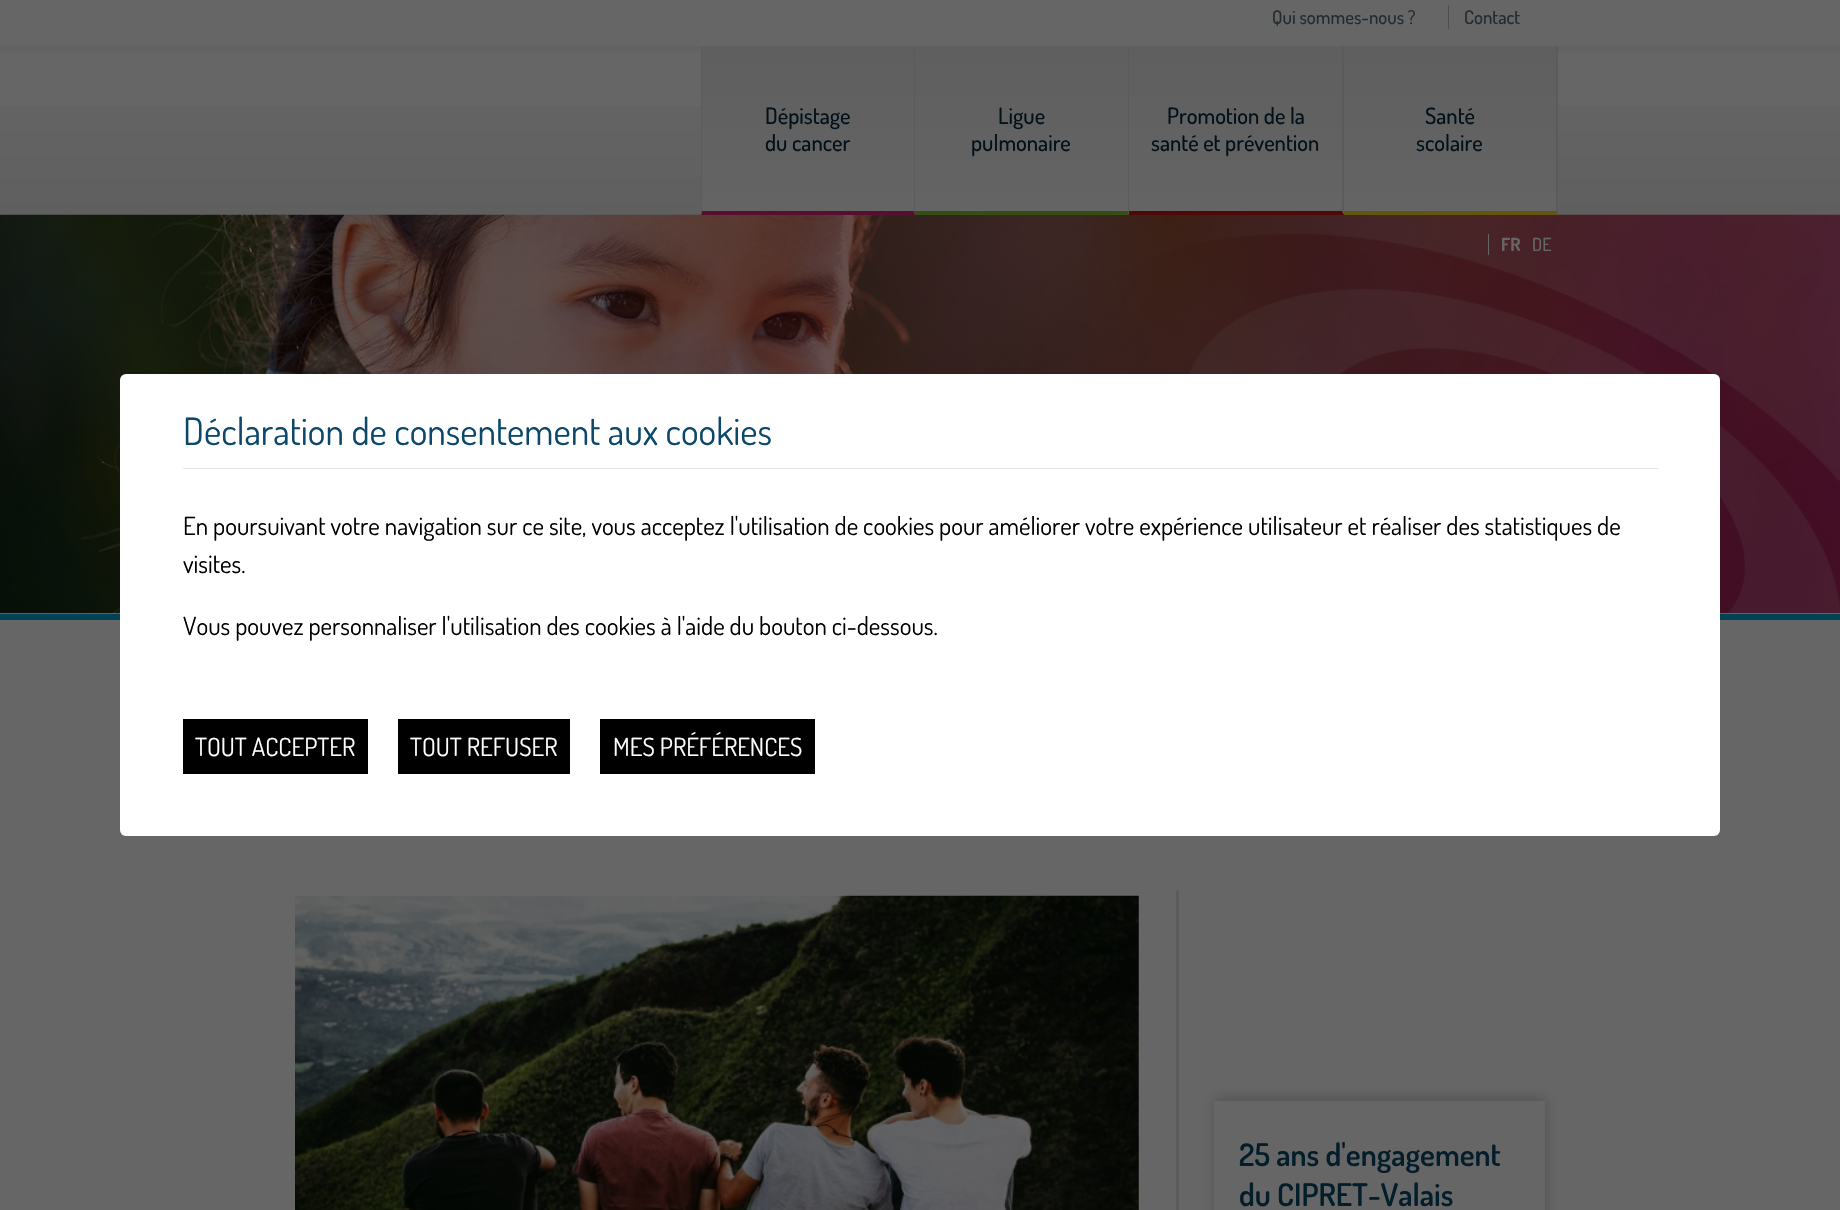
#include "include/core/SkBlurTypes.h"
#include "include/core/SkCanvas.h"
#include "include/core/SkData.h"
#include "include/core/SkFont.h"
#include "include/core/SkFontMgr.h"
#include "include/core/SkImage.h"
#include "include/core/SkMaskFilter.h"
#include "include/core/SkPaint.h"
#include "include/core/SkPathBuilder.h"
#include "include/core/SkTextBlob.h"
#include "include/effects/SkDashPathEffect.h"
#include "include/effects/SkGradientShader.h"
#include "include/utils/SkParsePath.h"

extern sk_sp<SkFontMgr> fontMgr;

static SkFont font(const char* family, int weight, float size, bool italic = false) {
    SkFontStyle style(weight, SkFontStyle::kNormal_Width,
        italic ? SkFontStyle::kItalic_Slant : SkFontStyle::kUpright_Slant);
    SkFont result(fontMgr->matchFamilyStyle(family, style), size);
    result.setSubpixel(true);
    return result;
}

static void drawLabel(SkCanvas* canvas, const char* s, float x, float y, const SkFont& font, SkColor color) {
    SkPaint ink(SkColor4f::FromColor(color));
    ink.setAntiAlias(true);
    canvas->drawString(s, x, y, font, ink);
}

static void fillRect(SkCanvas* canvas, float x, float y, float w, float h, SkColor color) {
    SkPaint ink(SkColor4f::FromColor(color));
    ink.setAntiAlias(true);
    canvas->drawRect(SkRect::MakeXYWH(x, y, w, h), ink);
}

static void fillRRect(SkCanvas* canvas, float x, float y, float w, float h, float radius, SkColor color) {
    SkPaint ink(SkColor4f::FromColor(color));
    ink.setAntiAlias(true);
    canvas->drawRoundRect(SkRect::MakeXYWH(x, y, w, h), radius, radius, ink);
}

static void drawPhoto(SkCanvas* canvas, const char* path, float x, float y, float w, float h) {
    auto image = SkImages::DeferredFromEncodedData(SkData::MakeFromFileName(path));
    canvas->drawImageRect(image, SkRect::MakeXYWH(x, y, w, h), SkSamplingOptions());
}

static SkPath parsePath(const char* data, bool evenOdd = false) {
    SkPath result = *SkParsePath::FromSVGString(data);
    if (evenOdd) result.setFillType(SkPathFillType::kEvenOdd);
    return result;
}

void draw(SkCanvas* canvas) {
    SkPaint paint;
    paint.setAntiAlias(true);
    canvas->clear(0xFF666666);
    fillRect(canvas, 1448, 5, 1, 24, 0xFF4E4E4E);
    SkFont font1 = font("Dosis", 500, 18.75f);
    drawLabel(canvas, "Qui sommes-nous ?", 1272, 24, font1, 0xFF212C31);
    drawLabel(canvas, "Contact", 1464, 24, font1, 0xFF212C31);
    {
        const SkColor colors[] = {0xFF666666, 0xFF5F5F5F};
        const float stops[] = {0, 1};
        const SkPoint ends[] = {{920, 46}, {920, 215}};
        paint.setShader(SkGradientShader::MakeLinear(ends, colors, stops, 2, SkTileMode::kClamp));
        paint.setAlpha(255);
    }
    canvas->drawRect(SkRect::MakeXYWH(0, 106, 1840, 109), paint);
    {
        const SkColor colors[] = {0xFF616161, 0xFF666666};
        const float stops[] = {0, 1};
        const SkPoint ends[] = {{920, 46}, {920, 59}};
        paint.setShader(SkGradientShader::MakeLinear(ends, colors, stops, 2, SkTileMode::kClamp));
        paint.setAlpha(255);
    }
    canvas->drawRect(SkRect::MakeXYWH(0, 46, 1840, 6), paint);
    {
        const SkColor colors[] = {0xFF5F5F5F, 0xFF646464};
        const float stops[] = {0, 1};
        const SkPoint ends[] = {{808, 46}, {808, 211}};
        paint.setShader(SkGradientShader::MakeLinear(ends, colors, stops, 2, SkTileMode::kClamp));
        paint.setAlpha(255);
    }
    canvas->drawRect(SkRect::MakeXYWH(702, 47, 212, 164), paint);
    drawPhoto(canvas, "assets/img1.png", 0, 214, 1840, 400);
    paint.setShader(nullptr);
    paint.setColor(0xFF5B5B5B);
    canvas->drawPath(parsePath("M915 46V215L914 211V46Z"), paint);
    paint.setColor(0xFF580E2F);
    canvas->drawPath(parsePath("M915 215H701L702 211H914Z"), paint);
    paint.setColor(0xFF5B5B5B);
    canvas->drawPath(parsePath("M701 215V46H702V211Z"), paint);
    SkFont font2 = font("Dosis", 500, 22.5f);
    drawLabel(canvas, "Dépistage", 765, 124, font2, 0xFF02111A);
    drawLabel(canvas, "du cancer", 765, 151, font2, 0xFF02111A);
    {
        const SkColor colors[] = {0xFF5F5F5F, 0xFF646464};
        const float stops[] = {0, 1};
        const SkPoint ends[] = {{1021, 46}, {1021, 211}};
        paint.setShader(SkGradientShader::MakeLinear(ends, colors, stops, 2, SkTileMode::kClamp));
        paint.setAlpha(255);
    }
    canvas->drawRect(SkRect::MakeXYWH(915, 47, 213, 164), paint);
    paint.setShader(nullptr);
    paint.setColor(0xFF5B5B5B);
    canvas->drawPath(parsePath("M1129 46V215L1128 211V46Z"), paint);
    paint.setColor(0xFF364E0F);
    canvas->drawPath(parsePath("M1129 215H915V211H1128Z"), paint);
    drawLabel(canvas, "Ligue", 998, 124, font2, 0xFF02111A);
    drawLabel(canvas, "pulmonaire", 971, 151, font2, 0xFF02111A);
    {
        const SkColor colors[] = {0xFF5F5F5F, 0xFF646464};
        const float stops[] = {0, 1};
        const SkPoint ends[] = {{1236, 46}, {1236, 211}};
        paint.setShader(SkGradientShader::MakeLinear(ends, colors, stops, 2, SkTileMode::kClamp));
        paint.setAlpha(255);
    }
    canvas->drawRect(SkRect::MakeXYWH(1129, 47, 213, 164), paint);
    paint.setShader(nullptr);
    paint.setColor(0xFF5B5B5B);
    canvas->drawPath(parsePath("M1344 46V215L1342 211V46Z"), paint);
    paint.setColor(0xFF4E090B);
    canvas->drawPath(parsePath("M1344 215H1129V211H1342Z"), paint);
    drawLabel(canvas, "Promotion de la", 1167, 124, font2, 0xFF02111A);
    drawLabel(canvas, "santé et prévention", 1151, 151, font2, 0xFF02111A);
    {
        const SkColor colors[] = {0xFF5F5F5F, 0xFF646464};
        const float stops[] = {0, 1};
        const SkPoint ends[] = {{1450, 46}, {1450, 211}};
        paint.setShader(SkGradientShader::MakeLinear(ends, colors, stops, 2, SkTileMode::kClamp));
        paint.setAlpha(255);
    }
    canvas->drawRect(SkRect::MakeXYWH(1344, 47, 212, 164), paint);
    paint.setShader(nullptr);
    paint.setColor(0xFF5B5B5B);
    canvas->drawPath(parsePath("M1558 46V215L1556 211V46Z"), paint);
    paint.setColor(0xFF64550E);
    canvas->drawPath(parsePath("M1558 215H1344V211H1556Z"), paint);
    drawLabel(canvas, "Santé", 1425, 124, font2, 0xFF02111A);
    drawLabel(canvas, "scolaire", 1416, 151, font2, 0xFF02111A);
    fillRect(canvas, 0, 614, 1840, 6, 0xFF004256);
    fillRect(canvas, 1488, 234, 1, 21, 0xFF666666);
    SkFont font3 = font("Dosis", 700, 18);
    drawLabel(canvas, "FR", 1501, 251, font3, 0xFF666666);
    SkFont font4 = font("Dosis", 500, 18);
    drawLabel(canvas, "DE", 1532, 251, font4, 0xFF666666);
    drawPhoto(canvas, "assets/img2.png", 295, 895, 844, 315);
    fillRect(canvas, 1176, 890, 3, 320, 0xFF5C5C5C);
    paint.setColor(0xFF525252);
    paint.setMaskFilter(SkMaskFilter::MakeBlur(kNormal_SkBlurStyle, 6));
    canvas->drawRect(SkRect::MakeXYWH(1215, 1098, 331, 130), paint);
    paint.setMaskFilter(nullptr);
    fillRect(canvas, 1214, 1101, 331, 109, 0xFF666666);
    SkFont font5 = font("Dosis", 600, 31.25f);
    drawLabel(canvas, "25 ans d'engagement", 1239, 1166, font5, 0xFF041D2B);
    drawLabel(canvas, "du CIPRET-Valais", 1239, 1206, font5, 0xFF041D2B);
    fillRRect(canvas, 120, 374, 1600, 462, 6, 0xFFFFFFFF);
    fillRect(canvas, 183, 468, 1475, 1, 0xFFE5E5E5);
    SkFont font6 = font("Dosis", 400, 37.5f);
    drawLabel(canvas, "Déclaration de consentement aux cookies", 183, 445, font6, 0xFF0B486B);
    SkFont font7 = font("Dosis", 400, 25);
    drawLabel(canvas, "En poursuivant votre navigation sur ce site, vous acceptez l'utilisation de cookies pour améliorer votre expérience utilisateur et réaliser des statistiques de", 183, 535, font7, 0xFF000000);
    drawLabel(canvas, "visites.", 183, 573, font7, 0xFF000000);
    drawLabel(canvas, "Vous pouvez personnaliser l'utilisation des cookies à l'aide du bouton ci-dessous.", 183, 635, font7, 0xFF000000);
    fillRect(canvas, 183, 719, 185, 55, 0xFF000000);
    drawLabel(canvas, "TOUT ACCEPTER", 195, 756, font7, 0xFFFFFFFF);
    fillRect(canvas, 398, 719, 172, 55, 0xFF000000);
    drawLabel(canvas, "TOUT REFUSER", 410, 756, font7, 0xFFFFFFFF);
    fillRect(canvas, 600, 719, 215, 55, 0xFF000000);
    drawLabel(canvas, "MES PRÉFÉRENCES", 613, 756, font7, 0xFFFFFFFF);
}
